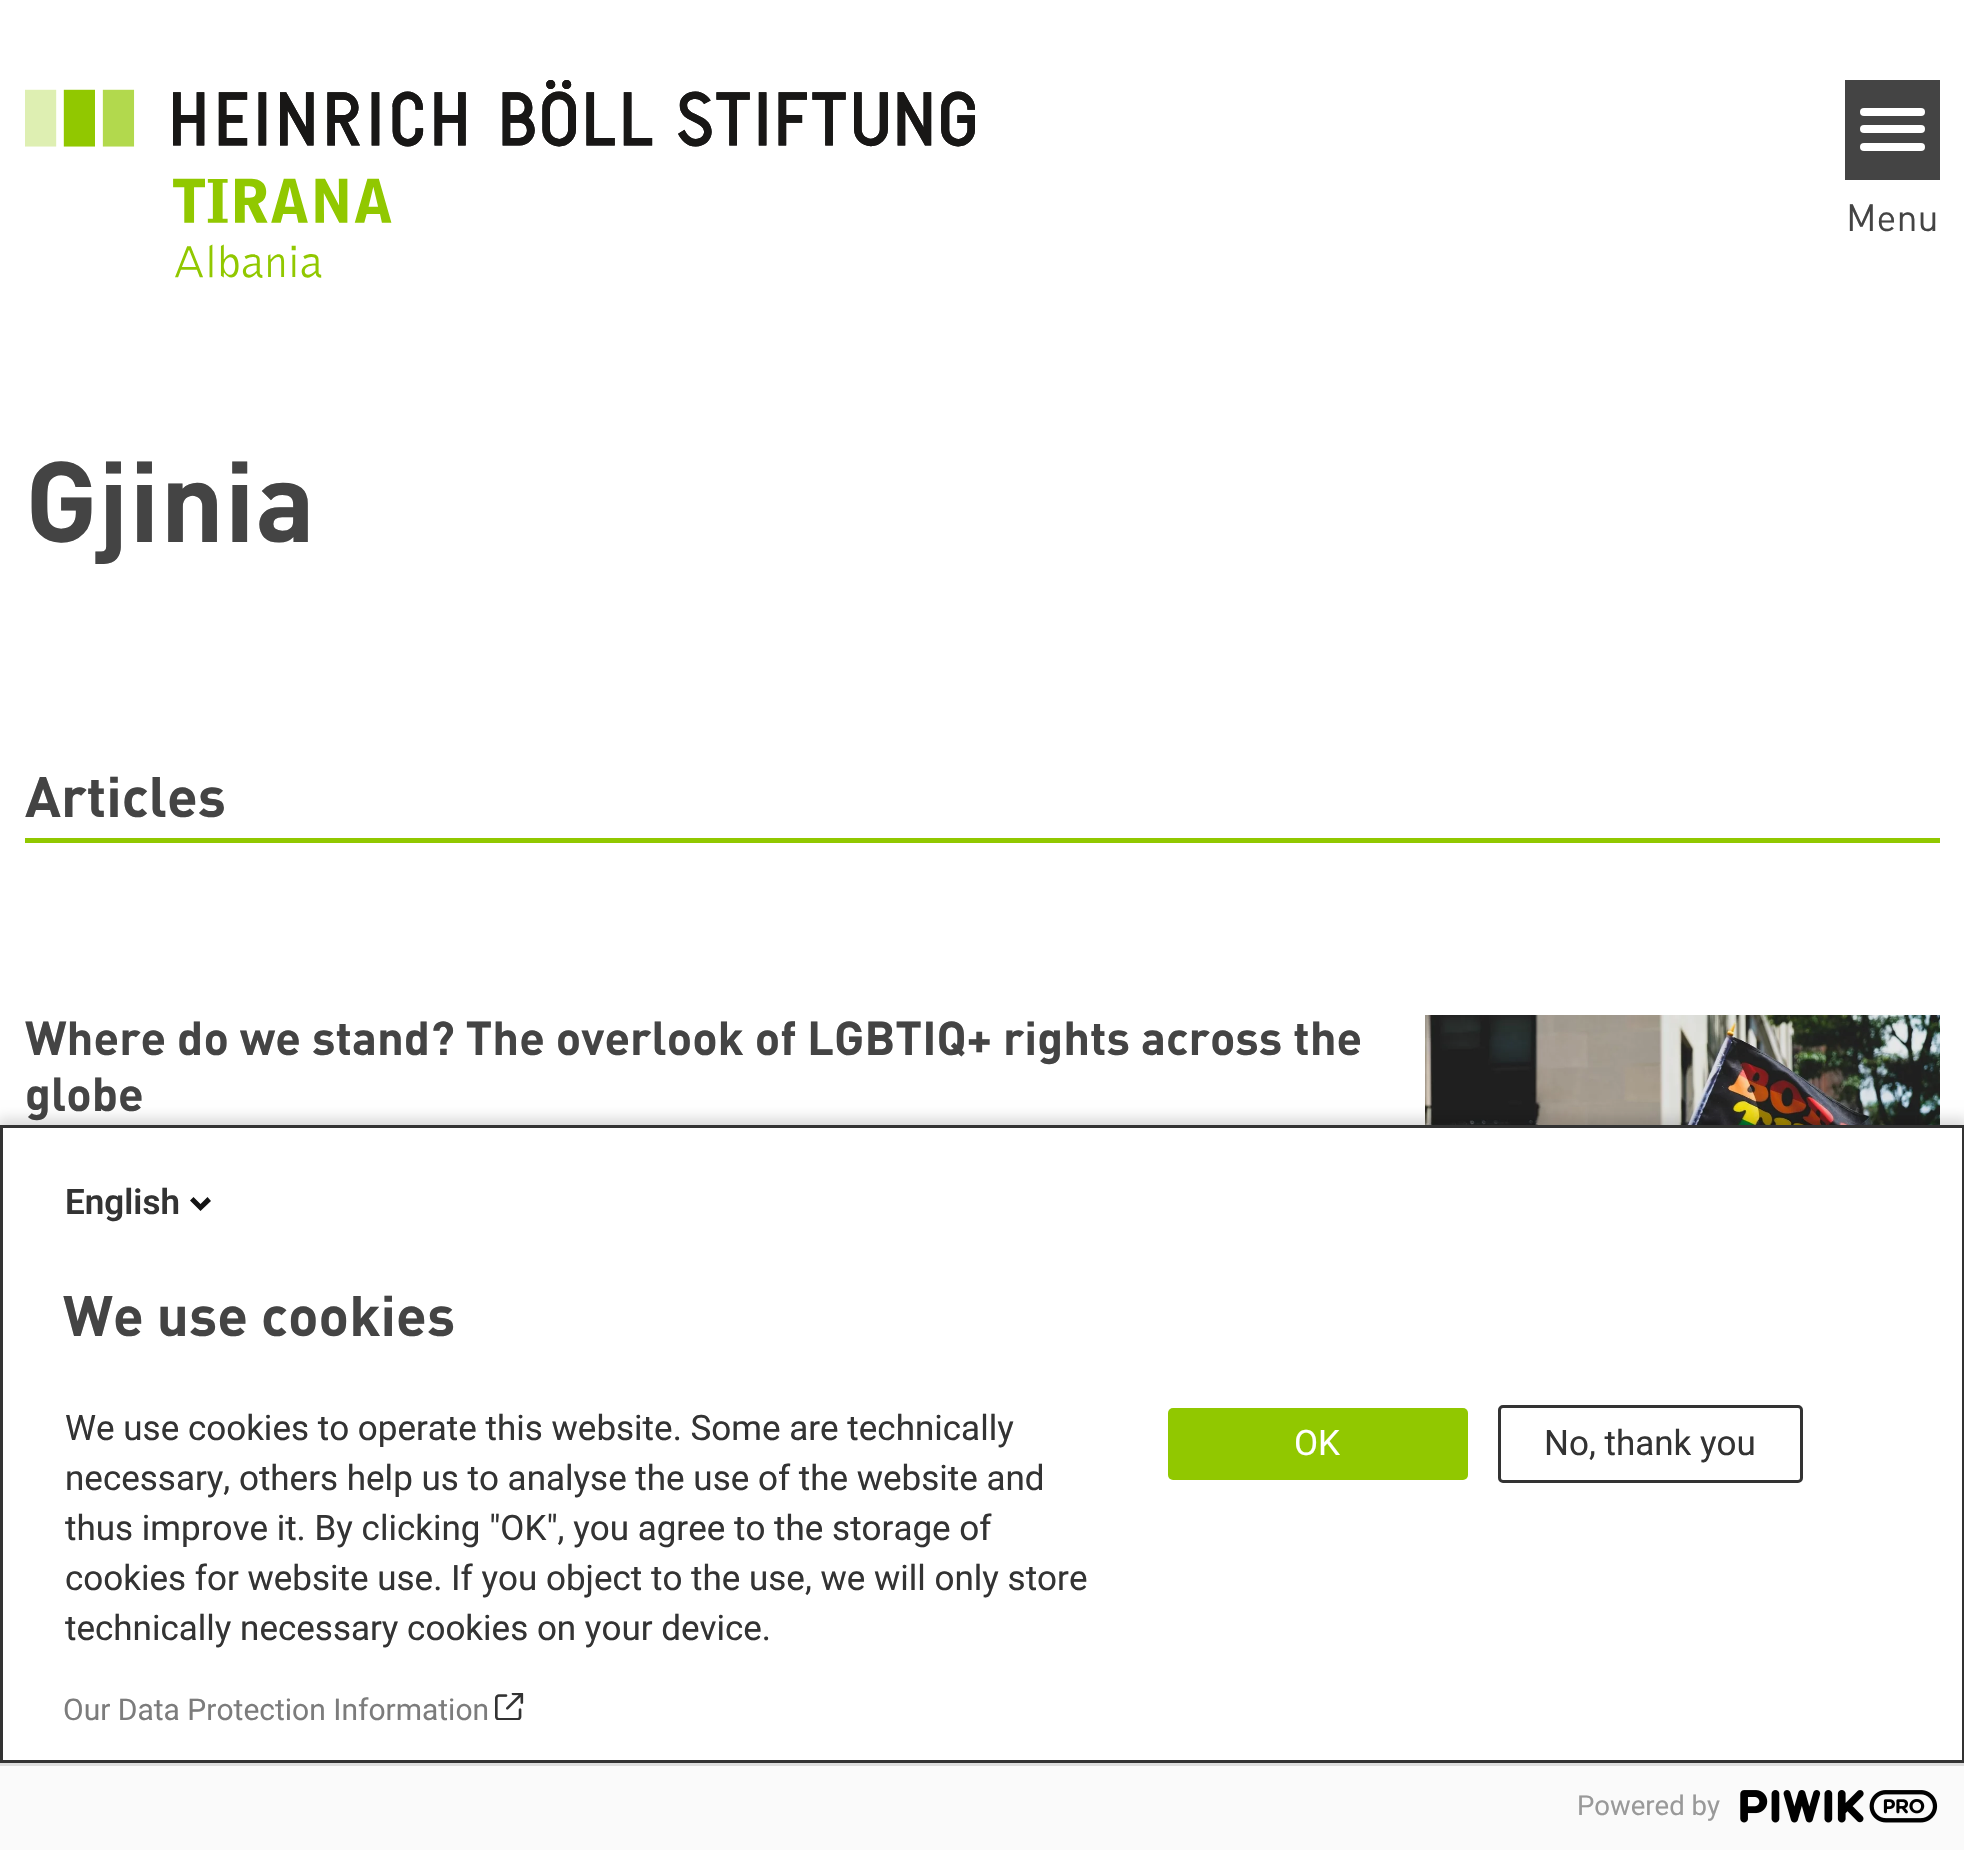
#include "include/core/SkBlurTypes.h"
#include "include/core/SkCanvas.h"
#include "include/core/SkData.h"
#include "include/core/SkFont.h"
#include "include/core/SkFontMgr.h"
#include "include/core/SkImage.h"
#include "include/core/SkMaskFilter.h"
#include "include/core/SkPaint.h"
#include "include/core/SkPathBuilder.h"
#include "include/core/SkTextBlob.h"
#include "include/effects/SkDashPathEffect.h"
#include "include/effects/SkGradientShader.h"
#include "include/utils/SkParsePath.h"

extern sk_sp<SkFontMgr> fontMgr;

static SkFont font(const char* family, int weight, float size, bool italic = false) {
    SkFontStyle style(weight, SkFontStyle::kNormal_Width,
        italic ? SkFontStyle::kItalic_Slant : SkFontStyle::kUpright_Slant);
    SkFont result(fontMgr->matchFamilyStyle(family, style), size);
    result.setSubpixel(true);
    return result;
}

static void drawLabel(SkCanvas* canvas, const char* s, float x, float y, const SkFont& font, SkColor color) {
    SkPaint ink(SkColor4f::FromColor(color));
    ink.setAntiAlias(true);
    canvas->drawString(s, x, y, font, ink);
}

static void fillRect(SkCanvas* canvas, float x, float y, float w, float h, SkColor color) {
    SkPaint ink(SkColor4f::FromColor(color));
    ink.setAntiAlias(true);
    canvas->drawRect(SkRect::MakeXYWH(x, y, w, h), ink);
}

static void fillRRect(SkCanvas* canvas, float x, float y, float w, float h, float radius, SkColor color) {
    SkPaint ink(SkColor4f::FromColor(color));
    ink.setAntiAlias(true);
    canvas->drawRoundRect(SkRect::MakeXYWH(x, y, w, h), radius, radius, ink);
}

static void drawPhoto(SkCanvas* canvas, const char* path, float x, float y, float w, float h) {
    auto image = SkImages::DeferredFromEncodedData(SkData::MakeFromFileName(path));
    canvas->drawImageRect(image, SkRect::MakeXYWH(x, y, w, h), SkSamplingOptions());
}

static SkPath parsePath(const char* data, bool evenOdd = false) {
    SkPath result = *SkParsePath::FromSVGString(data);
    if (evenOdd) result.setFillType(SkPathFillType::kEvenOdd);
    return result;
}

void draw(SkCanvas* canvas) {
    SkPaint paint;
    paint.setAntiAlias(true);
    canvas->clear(0xFFFFFFFF);
    drawPhoto(canvas, "assets/img1.png", 25, 80, 950, 198);
    fillRect(canvas, 1845, 80, 95, 100, 0xFF444444);
    fillRRect(canvas, 1860, 125, 65, 8, 4, 0xFFFFFFFF);
    fillRRect(canvas, 1860, 108, 65, 8, 4, 0xFFFFFFFF);
    fillRRect(canvas, 1860, 143, 65, 8, 4, 0xFFFFFFFF);
    SkFont font1 = font("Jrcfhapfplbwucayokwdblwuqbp", 400, 37.5f);
    drawLabel(canvas, "Menu", 1846, 231, font1, 0xFF444444);
    SkFont font2 = font("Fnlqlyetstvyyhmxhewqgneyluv", 700, 112.5f);
    drawLabel(canvas, "Gjinia", 25, 542, font2, 0xFF444444);
    fillRect(canvas, 25, 838, 1915, 5, 0xFF91C800);
    SkFont font3 = font("Fnlqlyetstvyyhmxhewqgneyluv", 700, 56.25f);
    drawLabel(canvas, "Articles", 25, 817, font3, 0xFF444444);
    SkFont font4 = font("Fnlqlyetstvyyhmxhewqgneyluv", 700, 46.9f);
    drawLabel(canvas, "Where do we stand? The overlook of LGBTIQ+ rights across the", 25, 1055, font4, 0xFF444444);
    drawLabel(canvas, "globe", 25, 1111, font4, 0xFF444444);
    drawPhoto(canvas, "assets/img2.png", 1425, 1015, 515, 110);
    paint.setColor(0x24000000);
    paint.setMaskFilter(SkMaskFilter::MakeBlur(kNormal_SkBlurStyle, 6));
    canvas->drawRect(SkRect::MakeXYWH(-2, 1118, 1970, 730), paint);
    paint.setMaskFilter(nullptr);
    paint.setColor(0xFFFFFFFF);
    canvas->drawRect(SkRect::MakeXYWH(1.5f, 1126.5f, 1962, 635), paint);
    paint.setStroke(true);
    paint.setStrokeWidth(3);
    paint.setColor(0xFF333333);
    canvas->drawRect(SkRect::MakeXYWH(1.5f, 1126.5f, 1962, 635), paint);
    SkFont font5 = font("Roboto", 600, 35);
    drawLabel(canvas, "English", 65, 1214, font5, 0xFF333333);
    paint.setStroke(false);
    paint.setColor(0xFF131313);
    canvas->drawPath(parsePath("M200.5 1204L207.5 1197L211 1201L200.5 1211L190 1200.5L193.5 1197Z"), paint);
    drawLabel(canvas, "We use cookies", 63, 1336, font3, 0xFF444444);
    SkFont font6 = font("Roboto", 400, 35);
    drawLabel(canvas, "We use cookies to operate this website. Some are technically", 65, 1440, font6, 0xFF333333);
    drawLabel(canvas, "necessary, others help us to analyse the use of the website and", 65, 1490, font6, 0xFF333333);
    drawLabel(canvas, "thus improve it. By clicking \"OK\", you agree to the storage of", 65, 1540, font6, 0xFF333333);
    drawLabel(canvas, "cookies for website use. If you object to the use, we will only store", 65, 1590, font6, 0xFF333333);
    drawLabel(canvas, "technically necessary cookies on your device.", 65, 1640, font6, 0xFF333333);
    SkFont font7 = font("Roboto", 400, 30);
    drawLabel(canvas, "Our Data Protection Information", 63, 1720, font7, 0xFF7C7C7C);
    drawPhoto(canvas, "assets/img3.png", 495, 1693, 29, 27);
    fillRRect(canvas, 1168, 1408, 300, 72, 5, 0xFF91C800);
    drawLabel(canvas, "OK", 1294, 1455, font6, 0xFFFFFFFF);
    paint.setStroke(true);
    paint.setColor(0xFF333333);
    canvas->drawRoundRect(SkRect::MakeXYWH(1499.5f, 1406.5f, 302, 75), 3.5f, 3.5f, paint);
    drawLabel(canvas, "No, thank you", 1544, 1455, font6, 0xFF333333);
    fillRect(canvas, 0, 1766, 1964, 84, 0xFFFAFAFA);
    fillRect(canvas, 0, 1763, 1964, 3, 0xFFDDDDDD);
    SkFont font8 = font("Roboto", 400, 27.5f);
    drawLabel(canvas, "Powered by", 1577, 1815, font8, 0xFF999999);
    drawPhoto(canvas, "assets/img4.png", 1740, 1790, 198, 33);
}
